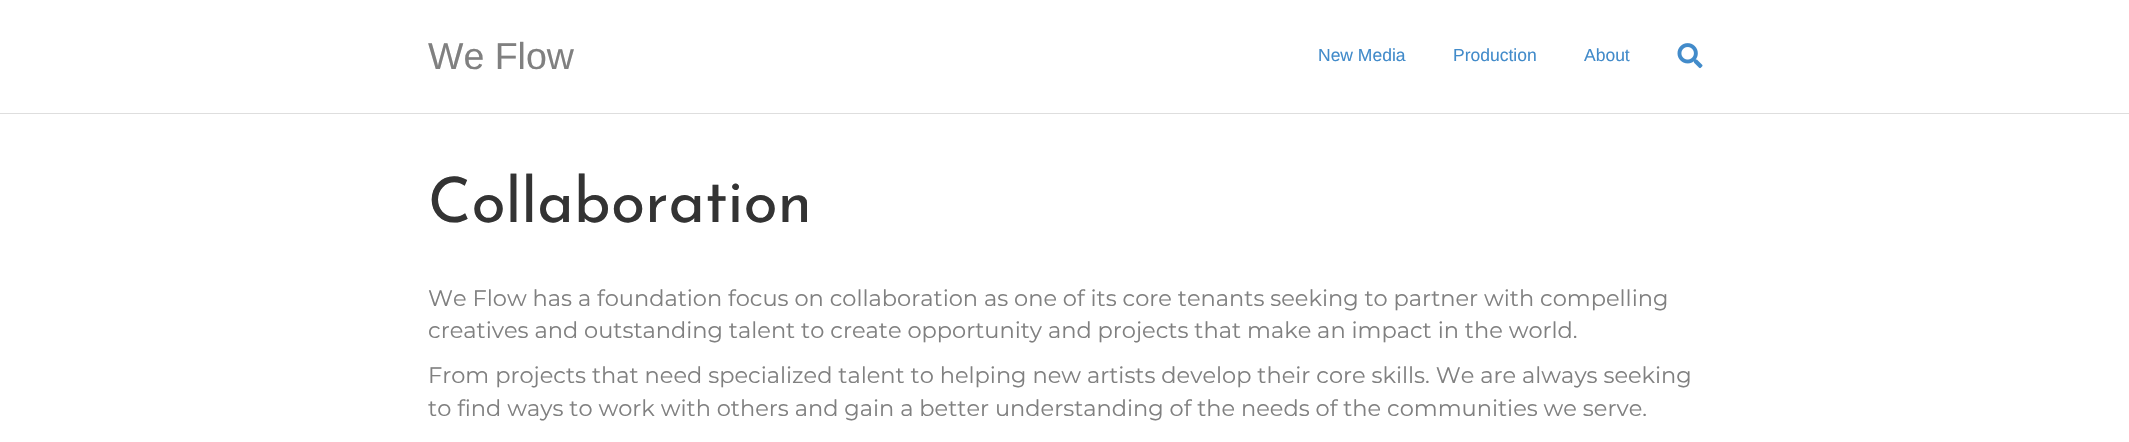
#include "include/core/SkBlurTypes.h"
#include "include/core/SkCanvas.h"
#include "include/core/SkData.h"
#include "include/core/SkFont.h"
#include "include/core/SkFontMgr.h"
#include "include/core/SkImage.h"
#include "include/core/SkMaskFilter.h"
#include "include/core/SkPaint.h"
#include "include/core/SkPathBuilder.h"
#include "include/core/SkTextBlob.h"
#include "include/effects/SkDashPathEffect.h"
#include "include/effects/SkGradientShader.h"
#include "include/utils/SkParsePath.h"

extern sk_sp<SkFontMgr> fontMgr;

static SkFont font(const char* family, int weight, float size, bool italic = false) {
    SkFontStyle style(weight, SkFontStyle::kNormal_Width,
        italic ? SkFontStyle::kItalic_Slant : SkFontStyle::kUpright_Slant);
    SkFont result(fontMgr->matchFamilyStyle(family, style), size);
    result.setSubpixel(true);
    return result;
}

static void drawLabel(SkCanvas* canvas, const char* s, float x, float y, const SkFont& font, SkColor color) {
    SkPaint ink(SkColor4f::FromColor(color));
    ink.setAntiAlias(true);
    canvas->drawString(s, x, y, font, ink);
}

static void fillRect(SkCanvas* canvas, float x, float y, float w, float h, SkColor color) {
    SkPaint ink(SkColor4f::FromColor(color));
    ink.setAntiAlias(true);
    canvas->drawRect(SkRect::MakeXYWH(x, y, w, h), ink);
}

static void drawPhoto(SkCanvas* canvas, const char* path, float x, float y, float w, float h) {
    auto image = SkImages::DeferredFromEncodedData(SkData::MakeFromFileName(path));
    canvas->drawImageRect(image, SkRect::MakeXYWH(x, y, w, h), SkSamplingOptions());
}

void draw(SkCanvas* canvas) {
    SkPaint paint;
    paint.setAntiAlias(true);
    canvas->clear(0xFFFFFFFF);
    fillRect(canvas, 0, 113, 2129, 1, 0xFFDEDEDE);
    SkFont font1 = font("Liberation Sans", 400, 37.5f);
    drawLabel(canvas, "We Flow", 428, 69, font1, 0xFF808080);
    SkFont font2 = font("Liberation Sans", 400, 17.5f);
    drawLabel(canvas, "New Media", 1318, 61, font2, 0xFF428BCA);
    drawLabel(canvas, "Production", 1453, 61, font2, 0xFF428BCA);
    drawLabel(canvas, "About", 1584, 61, font2, 0xFF428BCA);
    drawPhoto(canvas, "assets/img1.png", 1677, 43, 26, 26);
    SkFont font3 = font("Josefin Sans", 100, 62.5f);
    drawLabel(canvas, "Collaboration", 428, 222, font3, 0xFF333333);
    SkFont font4 = font("Montserrat", 400, 22.5f);
    drawLabel(canvas, "We Flow has a foundation focus on collaboration as one of its core tenants seeking to partner with compelling", 428, 306, font4, 0xFF808080);
    drawLabel(canvas, "creatives and outstanding talent to create opportunity and projects that make an impact in the world.", 428, 338, font4, 0xFF808080);
    drawLabel(canvas, "From projects that need specialized talent to helping new artists develop their core skills. We are always seeking", 428, 383, font4, 0xFF808080);
    drawLabel(canvas, "to find ways to work with others and gain a better understanding of the needs of the communities we serve.", 428, 416, font4, 0xFF808080);
}
